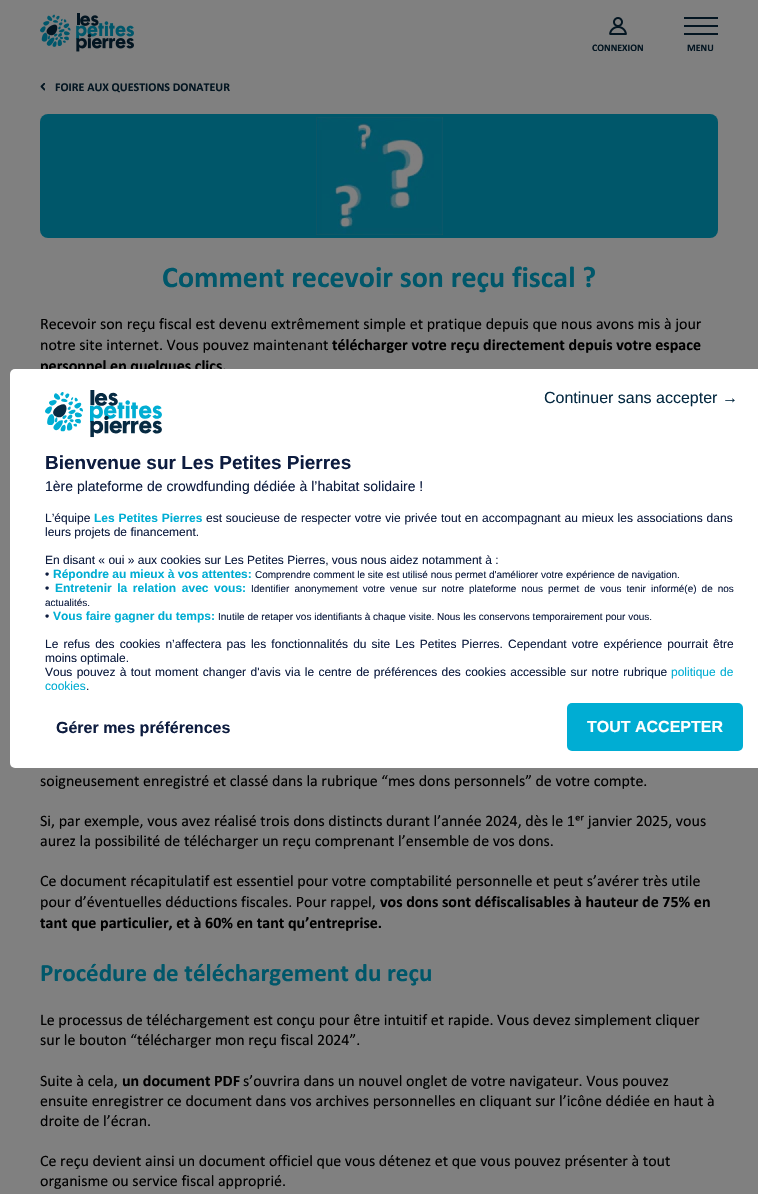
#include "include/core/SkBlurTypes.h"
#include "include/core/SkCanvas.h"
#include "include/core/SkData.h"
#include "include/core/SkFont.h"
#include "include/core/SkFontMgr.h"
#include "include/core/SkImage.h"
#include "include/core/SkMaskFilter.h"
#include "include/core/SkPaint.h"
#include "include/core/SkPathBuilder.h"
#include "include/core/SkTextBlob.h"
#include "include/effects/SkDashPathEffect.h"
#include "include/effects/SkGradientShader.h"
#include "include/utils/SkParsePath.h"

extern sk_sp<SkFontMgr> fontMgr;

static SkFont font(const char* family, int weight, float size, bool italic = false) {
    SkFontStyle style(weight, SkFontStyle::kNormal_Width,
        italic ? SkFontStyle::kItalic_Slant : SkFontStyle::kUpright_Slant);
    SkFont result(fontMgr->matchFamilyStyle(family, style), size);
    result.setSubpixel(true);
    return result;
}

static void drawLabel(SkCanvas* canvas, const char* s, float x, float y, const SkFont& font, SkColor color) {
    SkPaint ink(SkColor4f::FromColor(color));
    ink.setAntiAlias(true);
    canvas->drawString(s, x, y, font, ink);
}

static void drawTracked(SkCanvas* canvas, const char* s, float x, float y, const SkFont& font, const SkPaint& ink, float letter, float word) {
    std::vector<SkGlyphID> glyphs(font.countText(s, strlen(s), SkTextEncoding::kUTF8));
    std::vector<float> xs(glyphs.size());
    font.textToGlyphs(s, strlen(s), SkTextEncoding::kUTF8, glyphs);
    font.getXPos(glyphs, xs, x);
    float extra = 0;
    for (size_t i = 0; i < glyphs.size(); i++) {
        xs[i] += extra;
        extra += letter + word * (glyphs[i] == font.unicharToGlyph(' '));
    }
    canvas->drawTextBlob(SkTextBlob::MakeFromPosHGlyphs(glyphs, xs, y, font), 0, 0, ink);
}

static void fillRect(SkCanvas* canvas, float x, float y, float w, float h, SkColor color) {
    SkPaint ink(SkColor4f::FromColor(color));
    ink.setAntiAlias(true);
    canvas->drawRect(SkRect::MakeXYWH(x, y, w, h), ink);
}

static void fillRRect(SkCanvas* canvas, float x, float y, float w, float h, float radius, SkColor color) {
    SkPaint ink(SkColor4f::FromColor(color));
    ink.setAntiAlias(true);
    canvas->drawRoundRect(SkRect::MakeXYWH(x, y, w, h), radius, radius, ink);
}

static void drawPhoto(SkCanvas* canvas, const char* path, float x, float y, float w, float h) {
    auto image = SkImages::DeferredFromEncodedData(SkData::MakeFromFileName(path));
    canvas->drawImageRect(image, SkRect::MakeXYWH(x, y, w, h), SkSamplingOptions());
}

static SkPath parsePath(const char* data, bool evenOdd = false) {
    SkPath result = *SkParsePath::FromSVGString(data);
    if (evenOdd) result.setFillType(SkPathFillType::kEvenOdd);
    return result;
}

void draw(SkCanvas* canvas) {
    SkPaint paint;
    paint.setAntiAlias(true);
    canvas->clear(0xFF808080);
    drawPhoto(canvas, "assets/img1.png", 40, 13, 94, 39);
    drawPhoto(canvas, "assets/img2.png", 609, 17, 18, 18);
    SkFont font1 = font("Calibri", 700, 10);
    drawLabel(canvas, "CONNEXION", 592, 51, font1, 0xFF031521);
    fillRect(canvas, 684, 17, 34, 2, 0xFF031521);
    fillRect(canvas, 684, 25, 34, 2, 0xFF031521);
    fillRect(canvas, 684, 33, 34, 2, 0xFF031521);
    drawLabel(canvas, "MENU", 687, 51, font1, 0xFF031521);
    canvas->save();
    canvas->clipRect(SkRect::MakeXYWH(40, 83, 5, 9));
    paint.setStroke(true);
    paint.setStrokeWidth(1.8f);
    paint.setStrokeCap(SkPaint::kRound_Cap);
    paint.setStrokeJoin(SkPaint::kRound_Join);
    paint.setColor(0xFF031521);
    canvas->drawPath(parsePath("M44.5 89.5L41.5 86.5L44.5 83.5"), paint);
    canvas->restore();
    SkFont font2 = font("Calibri", 700, 12);
    drawLabel(canvas, "FOIRE AUX QUESTIONS DONATEUR", 55, 91, font2, 0xFF031521);
    fillRRect(canvas, 40, 114, 678, 124, 8, 0xFF00576A);
    drawPhoto(canvas, "assets/img3.png", 316, 117, 127, 118);
    SkFont font3 = font("Calibri", 700, 30);
    drawLabel(canvas, "Comment recevoir son reçu fiscal ?", 162, 287, font3, 0xFF00576A);
    SkFont font4 = font("Calibri", 400, 16);
    drawLabel(canvas, "Recevoir son reçu fiscal est devenu extrêmement simple et pratique depuis que nous avons mis à jour", 40, 329, font4, 0xFF000000);
    drawLabel(canvas, "notre site internet. Vous pouvez maintenant", 40, 350, font4, 0xFF000000);
    SkFont font5 = font("Calibri", 700, 16);
    drawLabel(canvas, "télécharger votre reçu directement depuis votre espace", 332, 350, font5, 0xFF000000);
    drawLabel(canvas, "personnel en quelques clics.", 40, 371, font5, 0xFF000000);
    drawLabel(canvas, "soigneusement enregistré et classé dans la rubrique “mes dons personnels” de votre compte.", 40, 786, font4, 0xFF000000);
    drawLabel(canvas, "Si, par exemple, vous avez réalisé trois dons distincts durant l’année 2024, dès le 1ᵉʳ janvier 2025, vous", 40, 826, font4, 0xFF000000);
    drawLabel(canvas, "aurez la possibilité de télécharger un reçu comprenant l’ensemble de vos dons.", 40, 846, font4, 0xFF000000);
    drawLabel(canvas, "Ce document récapitulatif est essentiel pour votre comptabilité personnelle et peut s’avérer très utile", 40, 886, font4, 0xFF000000);
    drawLabel(canvas, "pour d’éventuelles déductions fiscales. Pour rappel,", 40, 907, font4, 0xFF000000);
    drawLabel(canvas, "vos dons sont défiscalisables à hauteur de 75% en", 380, 907, font5, 0xFF000000);
    drawLabel(canvas, "tant que particulier, et à 60% en tant qu’entreprise.", 40, 928, font5, 0xFF000000);
    SkFont font6 = font("Calibri", 700, 25);
    drawLabel(canvas, "Procédure de téléchargement du reçu", 40, 981, font6, 0xFF00576A);
    drawLabel(canvas, "Le processus de téléchargement est conçu pour être intuitif et rapide. Vous devez simplement cliquer", 40, 1025, font4, 0xFF000000);
    drawLabel(canvas, "sur le bouton “télécharger mon reçu fiscal 2024”.", 40, 1045, font4, 0xFF000000);
    drawLabel(canvas, "Suite à cela,", 40, 1086, font4, 0xFF000000);
    drawLabel(canvas, "un document PDF", 122, 1086, font5, 0xFF000000);
    drawLabel(canvas, "s’ouvrira dans un nouvel onglet de votre navigateur. Vous pouvez", 243, 1086, font4, 0xFF000000);
    drawLabel(canvas, "ensuite enregistrer ce document dans vos archives personnelles en cliquant sur l’icône dédiée en haut à", 40, 1106, font4, 0xFF000000);
    drawLabel(canvas, "droite de l’écran.", 40, 1126, font4, 0xFF000000);
    drawLabel(canvas, "Ce reçu devient ainsi un document officiel que vous détenez et que vous pouvez présenter à tout", 40, 1166, font4, 0xFF000000);
    drawLabel(canvas, "organisme ou service fiscal approprié.", 40, 1186, font4, 0xFF000000);
    fillRRect(canvas, 10, 369, 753, 399, 5, 0xFFFFFFFF);
    SkFont font7 = font("Liberation Sans", 400, 16);
    drawLabel(canvas, "Continuer sans accepter →", 544, 403, font7, 0xFF062A42);
    SkFont font8 = font("Liberation Sans", 700, 16);
    drawLabel(canvas, "Gérer mes préférences", 56, 733, font8, 0xFF0D1C3F);
    fillRRect(canvas, 567, 703, 176, 48, 5, 0xFF00ADD3);
    drawLabel(canvas, "TOUT ACCEPTER", 587, 732, font8, 0xFFFFFFFF);
    drawPhoto(canvas, "assets/img4.png", 45, 390, 117, 48);
    SkFont font9 = font("Liberation Sans", 700, 19);
    drawLabel(canvas, "Bienvenue sur Les Petites Pierres", 45, 469, font9, 0xFF0D1C3F);
    SkFont font10 = font("Liberation Sans", 400, 14);
    drawLabel(canvas, "1ère plateforme de crowdfunding dédiée à l’habitat solidaire !", 45, 491, font10, 0xFF0D1C3F);
    SkFont font11 = font("Liberation Sans", 400, 12);
    drawLabel(canvas, "L’équipe", 45, 522, font11, 0xFF0D1C3F);
    SkFont font12 = font("Liberation Sans", 700, 12);
    paint.setStroke(false);
    paint.setColor(0xFF00ADD3);
    drawTracked(canvas, "Les Petites Pierres", 94, 522, font12, paint, 0, 0.5f);
    paint.setColor(0xFF0D1C3F);
    drawTracked(canvas, "est soucieuse de respecter votre vie privée tout en accompagnant au mieux les associations dans", 206, 522, font11, paint, 0, 0.5f);
    drawLabel(canvas, "leurs projets de financement.", 45, 536, font11, 0xFF0D1C3F);
    drawLabel(canvas, "En disant « oui » aux cookies sur Les Petites Pierres, vous nous aidez notamment à :", 45, 564, font11, 0xFF0D1C3F);
    drawLabel(canvas, "•", 45, 578, font11, 0xFF0D1C3F);
    drawLabel(canvas, "Répondre au mieux à vos attentes:", 53, 578, font12, 0xFF00ADD3);
    SkFont font13 = font("Liberation Sans", 400, 10);
    drawLabel(canvas, "Comprendre comment le site est utilisé nous permet d'améliorer votre expérience de navigation.", 255, 578, font13, 0xFF0D1C3F);
    drawLabel(canvas, "•", 45, 592, font11, 0xFF0D1C3F);
    paint.setColor(0xFF00ADD3);
    drawTracked(canvas, "Entretenir la relation avec vous:", 55, 592, font12, paint, 0, 2.25f);
    paint.setColor(0xFF0D1C3F);
    drawTracked(canvas, "Identifier anonymement votre venue sur notre plateforme nous permet de vous tenir informé(e) de nos", 251, 592, font13, paint, 0, 2.25f);
    drawLabel(canvas, "actualités.", 45, 606, font13, 0xFF0D1C3F);
    drawLabel(canvas, "•", 45, 620, font11, 0xFF0D1C3F);
    drawLabel(canvas, "Vous faire gagner du temps:", 53, 620, font12, 0xFF00ADD3);
    drawLabel(canvas, "Inutile de retaper vos identifiants à chaque visite. Nous les conservons temporairement pour vous.", 218, 620, font13, 0xFF0D1C3F);
    drawTracked(canvas, "Le refus des cookies n’affectera pas les fonctionnalités du site Les Petites Pierres. Cependant votre expérience pourrait être", 45, 648, font11, paint, 0, 1.75f);
    drawLabel(canvas, "moins optimale.", 45, 662, font11, 0xFF0D1C3F);
    drawTracked(canvas, "Vous pouvez à tout moment changer d'avis via le centre de préférences des cookies accessible sur notre rubrique", 45, 676, font11, paint, 0, 1);
    paint.setColor(0xFF00ADD3);
    drawTracked(canvas, "politique de", 671, 676, font11, paint, 0, 1);
    drawLabel(canvas, "cookies", 45, 690, font11, 0xFF00ADD3);
    drawLabel(canvas, ".", 86, 690, font11, 0xFF0D1C3F);
}
